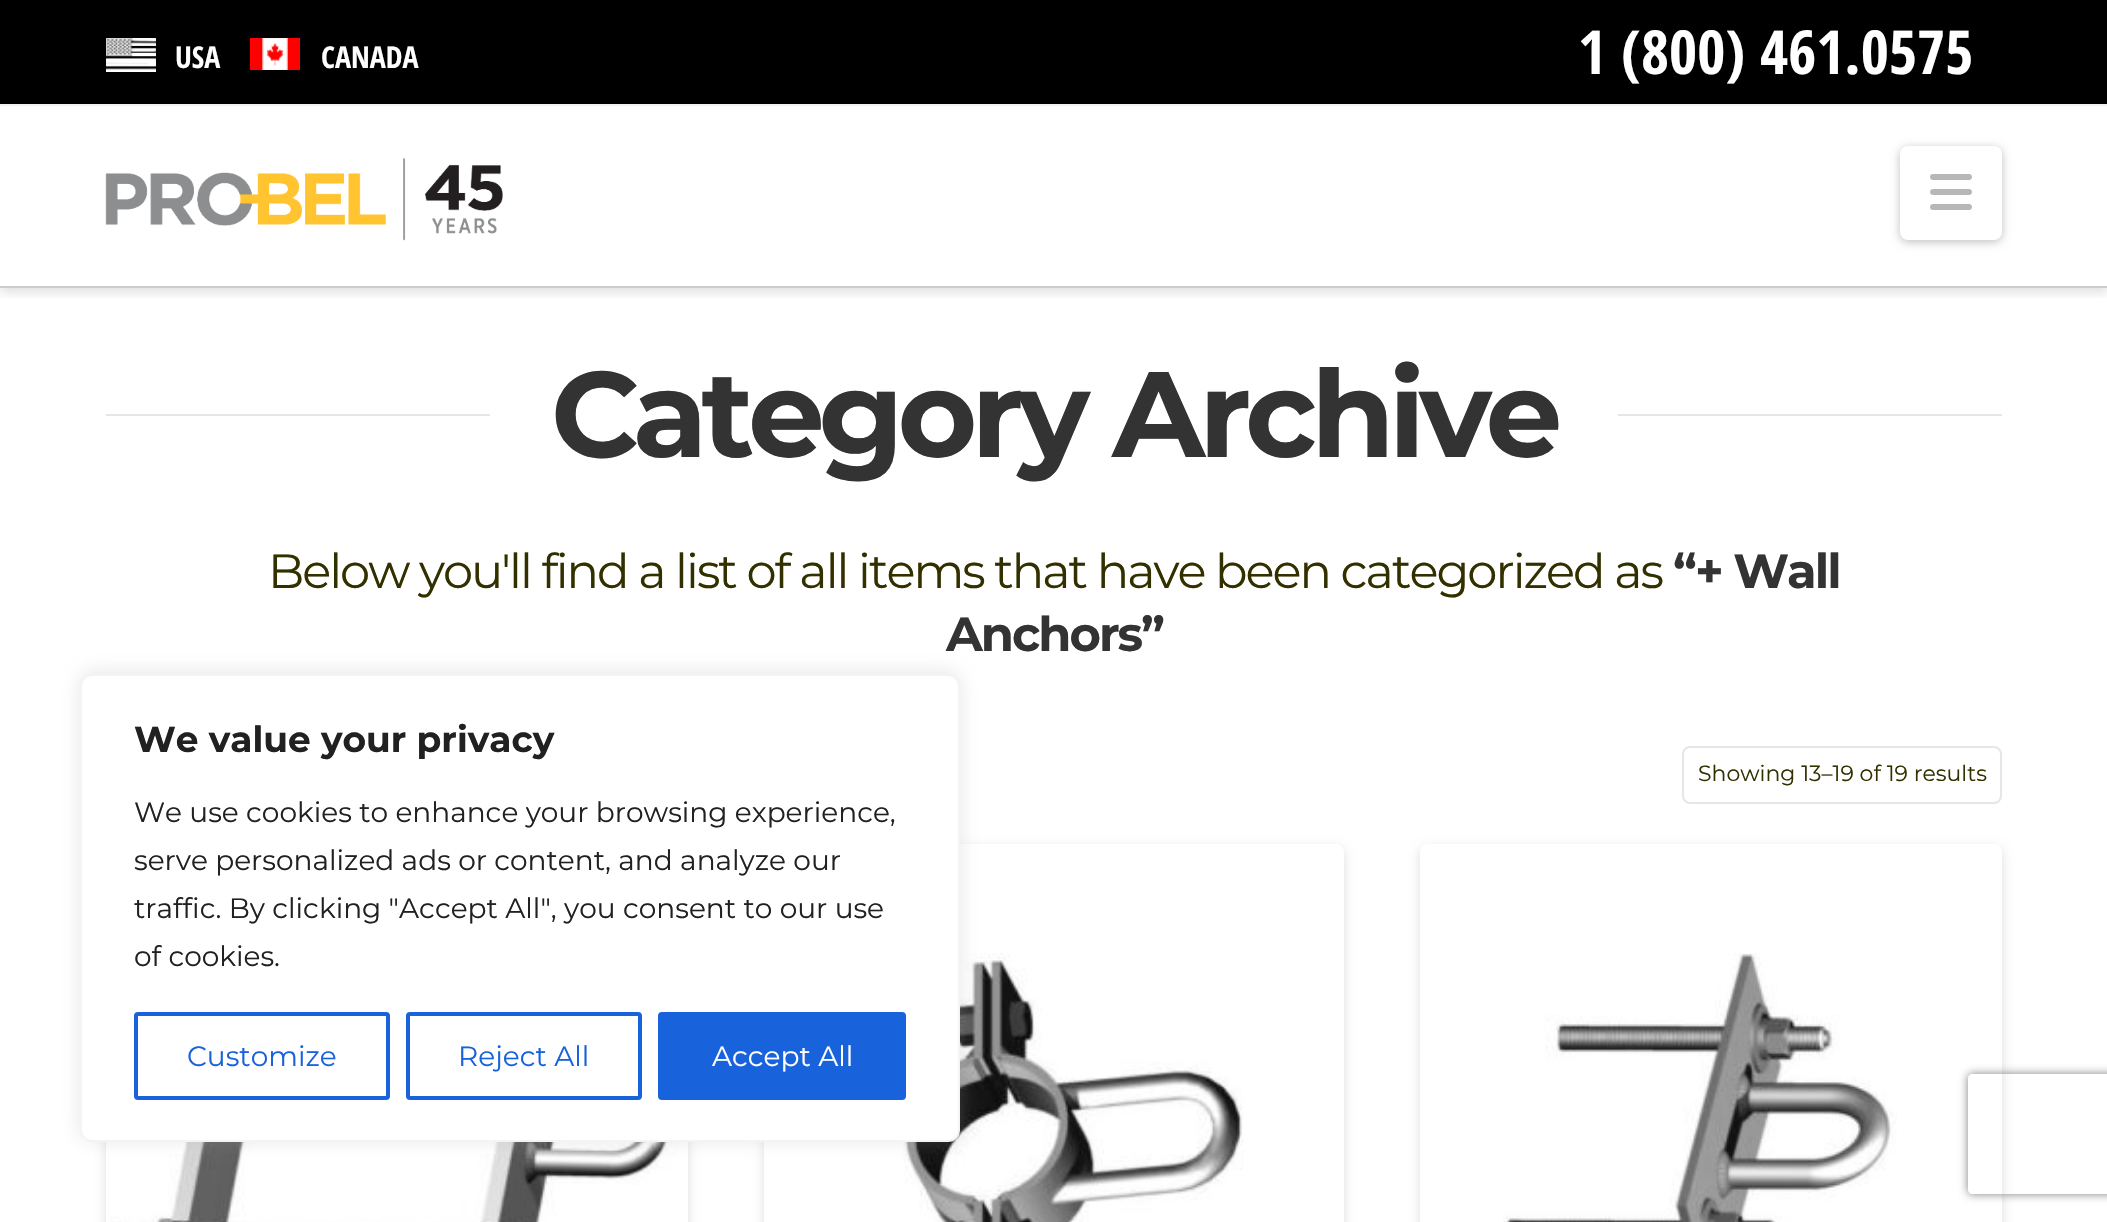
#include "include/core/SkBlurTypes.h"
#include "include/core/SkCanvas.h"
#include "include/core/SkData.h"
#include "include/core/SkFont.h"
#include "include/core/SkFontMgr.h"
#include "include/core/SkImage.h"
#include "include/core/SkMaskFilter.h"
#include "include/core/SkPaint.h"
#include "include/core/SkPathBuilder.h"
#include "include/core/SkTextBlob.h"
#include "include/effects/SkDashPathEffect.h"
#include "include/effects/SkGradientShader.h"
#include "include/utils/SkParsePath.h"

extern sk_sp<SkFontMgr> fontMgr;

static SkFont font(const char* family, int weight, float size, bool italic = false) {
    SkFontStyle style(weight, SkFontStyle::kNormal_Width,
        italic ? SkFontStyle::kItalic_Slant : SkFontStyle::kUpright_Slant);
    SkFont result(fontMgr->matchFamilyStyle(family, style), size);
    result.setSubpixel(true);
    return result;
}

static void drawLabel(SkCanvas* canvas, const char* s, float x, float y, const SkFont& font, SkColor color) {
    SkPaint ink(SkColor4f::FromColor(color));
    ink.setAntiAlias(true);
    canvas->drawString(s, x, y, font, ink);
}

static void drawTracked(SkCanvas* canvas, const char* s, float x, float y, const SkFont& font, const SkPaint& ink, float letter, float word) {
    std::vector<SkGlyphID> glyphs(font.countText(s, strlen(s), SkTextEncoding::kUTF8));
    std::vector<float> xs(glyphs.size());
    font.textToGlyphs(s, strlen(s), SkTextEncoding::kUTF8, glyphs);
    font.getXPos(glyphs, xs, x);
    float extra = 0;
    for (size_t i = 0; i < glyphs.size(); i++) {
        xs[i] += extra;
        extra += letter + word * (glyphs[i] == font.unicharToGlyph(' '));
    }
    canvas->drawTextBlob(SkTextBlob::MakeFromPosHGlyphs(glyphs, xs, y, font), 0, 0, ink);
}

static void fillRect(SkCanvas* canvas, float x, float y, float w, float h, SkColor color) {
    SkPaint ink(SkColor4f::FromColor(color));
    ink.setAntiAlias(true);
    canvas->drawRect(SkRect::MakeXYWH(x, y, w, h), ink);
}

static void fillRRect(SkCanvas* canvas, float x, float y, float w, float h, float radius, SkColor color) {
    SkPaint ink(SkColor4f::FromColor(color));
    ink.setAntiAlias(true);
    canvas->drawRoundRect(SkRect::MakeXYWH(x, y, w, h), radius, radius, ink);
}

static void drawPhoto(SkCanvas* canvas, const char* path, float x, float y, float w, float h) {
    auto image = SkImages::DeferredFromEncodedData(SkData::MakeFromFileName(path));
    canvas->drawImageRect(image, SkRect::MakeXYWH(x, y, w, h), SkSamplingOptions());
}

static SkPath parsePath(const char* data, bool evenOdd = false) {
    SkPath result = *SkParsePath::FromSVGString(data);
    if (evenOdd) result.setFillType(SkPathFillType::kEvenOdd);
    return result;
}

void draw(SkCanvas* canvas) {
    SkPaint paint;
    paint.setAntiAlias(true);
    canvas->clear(0xFFFFFFFF);
    canvas->save();
    canvas->clipRect(SkRect::MakeXYWH(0, 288, 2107, 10));
    paint.setColor(0x21000000);
    paint.setMaskFilter(SkMaskFilter::MakeBlur(kNormal_SkBlurStyle, 5.5f));
    canvas->drawRect(SkRect::MakeXYWH(0, 110, 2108, 182), paint);
    paint.setMaskFilter(nullptr);
    canvas->restore();
    fillRect(canvas, 0, 0, 2107, 104, 0xFF000000);
    fillRect(canvas, 0, 104, 2107, 2, 0xFFF2F2F2);
    drawPhoto(canvas, "assets/img1.png", 106, 38, 50, 34);
    SkFont font1 = font("Open Sans Condensed", 700, 30);
    drawLabel(canvas, "USA", 175, 68, font1, 0xFFFFFFFF);
    drawPhoto(canvas, "assets/img2.png", 250, 38, 50, 32);
    drawLabel(canvas, "CANADA", 321, 68, font1, 0xFFFFFFFF);
    SkFont font2 = font("Open Sans Condensed", 700, 60.75f);
    drawLabel(canvas, "1 (800) 461.0575", 1578, 74, font2, 0xFFFFFFFF);
    fillRect(canvas, 0, 286, 2107, 2, 0xFFCCCCCC);
    drawPhoto(canvas, "assets/img3.png", 105, 158, 398, 83);
    paint.setColor(0x40000000);
    paint.setMaskFilter(SkMaskFilter::MakeBlur(kNormal_SkBlurStyle, 5));
    canvas->drawRoundRect(SkRect::MakeXYWH(1900, 148, 102, 94), 8, 8, paint);
    paint.setMaskFilter(nullptr);
    fillRRect(canvas, 1900, 146, 102, 94, 8, 0xFFFFFFFF);
    drawPhoto(canvas, "assets/img4.png", 1930, 174, 42, 36);
    fillRect(canvas, 106, 414, 384, 2, 0xFFE6E6E6);
    SkFont font3 = font("Montserrat", 700, 121.25f);
    paint.setColor(0xFF333333);
    drawTracked(canvas, "Category Archive", 551, 457, font3, paint, -6, 0);
    fillRect(canvas, 1618, 414, 384, 2, 0xFFE6E6E6);
    SkFont font4 = font("Montserrat", 400, 48);
    paint.setColor(0xFF333000);
    drawTracked(canvas, "Below you'll find a list of all items that have been categorized as", 268, 588, font4, paint, -2, 0);
    SkFont font5 = font("Montserrat", 700, 48);
    paint.setColor(0xFF333333);
    drawTracked(canvas, "“+ Wall", 1673, 588, font5, paint, -2, 0);
    drawTracked(canvas, "Anchors”", 946, 651, font5, paint, -2, 0);
    paint.setStroke(true);
    paint.setStrokeWidth(2);
    paint.setColor(0xFFE6E6E6);
    canvas->drawRoundRect(SkRect::MakeXYWH(1683, 747, 318, 56), 7, 7, paint);
    SkFont font6 = font("Montserrat", 400, 22);
    drawLabel(canvas, "Showing 13–19 of 19 results", 1698, 781, font6, 0xFF333000);
    paint.setStroke(false);
    paint.setColor(0x21000000);
    paint.setMaskFilter(SkMaskFilter::MakeBlur(kNormal_SkBlurStyle, 5.5f));
    canvas->drawRoundRect(SkRect::MakeXYWH(106, 848, 582, 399), 8, 8, paint);
    paint.setMaskFilter(nullptr);
    fillRect(canvas, 106, 1142, 582, 80, 0xFFFFFFFF);
    drawPhoto(canvas, "assets/img5.png", 110, 1142, 568, 80);
    paint.setMaskFilter(SkMaskFilter::MakeBlur(kNormal_SkBlurStyle, 5.5f));
    canvas->drawRoundRect(SkRect::MakeXYWH(764, 848, 580, 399), 8, 8, paint);
    paint.setMaskFilter(nullptr);
    fillRRect(canvas, 764, 844, 580, 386, 8, 0xFFFFFFFF);
    drawPhoto(canvas, "assets/img6.png", 903, 953, 341, 269);
    paint.setMaskFilter(SkMaskFilter::MakeBlur(kNormal_SkBlurStyle, 5.5f));
    canvas->drawRoundRect(SkRect::MakeXYWH(1420, 848, 582, 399), 8, 8, paint);
    paint.setMaskFilter(nullptr);
    fillRRect(canvas, 1420, 844, 582, 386, 8, 0xFFFFFFFF);
    drawPhoto(canvas, "assets/img7.png", 1503, 953, 394, 269);
    paint.setColor(0x4DACABAB);
    paint.setMaskFilter(SkMaskFilter::MakeBlur(kNormal_SkBlurStyle, 10));
    canvas->drawRoundRect(SkRect::MakeXYWH(80, 672, 880, 468), 12, 12, paint);
    paint.setMaskFilter(nullptr);
    paint.setColor(0xFFFFFFFF);
    canvas->drawRoundRect(SkRect::MakeXYWH(81, 675, 878, 466), 11, 11, paint);
    paint.setStroke(true);
    paint.setColor(0xFFF4F4F4);
    canvas->drawRoundRect(SkRect::MakeXYWH(81, 675, 878, 466), 11, 11, paint);
    SkFont font7 = font("Montserrat", 700, 36);
    drawLabel(canvas, "We value your privacy", 134, 752, font7, 0xFF212121);
    SkFont font8 = font("Montserrat", 400, 28);
    drawLabel(canvas, "We use cookies to enhance your browsing experience,", 134, 822, font8, 0xFF212121);
    drawLabel(canvas, "serve personalized ads or content, and analyze our", 134, 870, font8, 0xFF212121);
    drawLabel(canvas, "traffic. By clicking \"Accept All\", you consent to our use", 134, 918, font8, 0xFF212121);
    drawLabel(canvas, "of cookies.", 134, 966, font8, 0xFF212121);
    paint.setStrokeWidth(4);
    paint.setColor(0xFF1863DC);
    canvas->drawRoundRect(SkRect::MakeXYWH(136, 1014, 252, 84), 2, 2, paint);
    drawLabel(canvas, "Customize", 187, 1066, font8, 0xFF1863DC);
    canvas->drawRoundRect(SkRect::MakeXYWH(408, 1014, 232, 84), 2, 2, paint);
    drawLabel(canvas, "Reject All", 458, 1066, font8, 0xFF1863DC);
    paint.setStroke(false);
    canvas->drawRoundRect(SkRect::MakeXYWH(660, 1014, 244, 84), 2, 2, paint);
    paint.setStroke(true);
    canvas->drawRoundRect(SkRect::MakeXYWH(660, 1014, 244, 84), 2, 2, paint);
    drawLabel(canvas, "Accept All", 712, 1066, font8, 0xFFFFFFFF);
    canvas->save();
    canvas->clipPath(parsePath("M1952 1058H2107V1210H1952ZM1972 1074H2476C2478 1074 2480 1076 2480 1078V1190C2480 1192 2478 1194 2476 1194H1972C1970 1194 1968 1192 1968 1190V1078C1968 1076 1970 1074 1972 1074Z", true), true);
    paint.setStroke(false);
    paint.setColor(0xFF808080);
    paint.setMaskFilter(SkMaskFilter::MakeBlur(kNormal_SkBlurStyle, 5));
    canvas->drawRoundRect(SkRect::MakeXYWH(1968, 1074, 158, 120), 4, 4, paint);
    paint.setMaskFilter(nullptr);
    canvas->restore();
}
